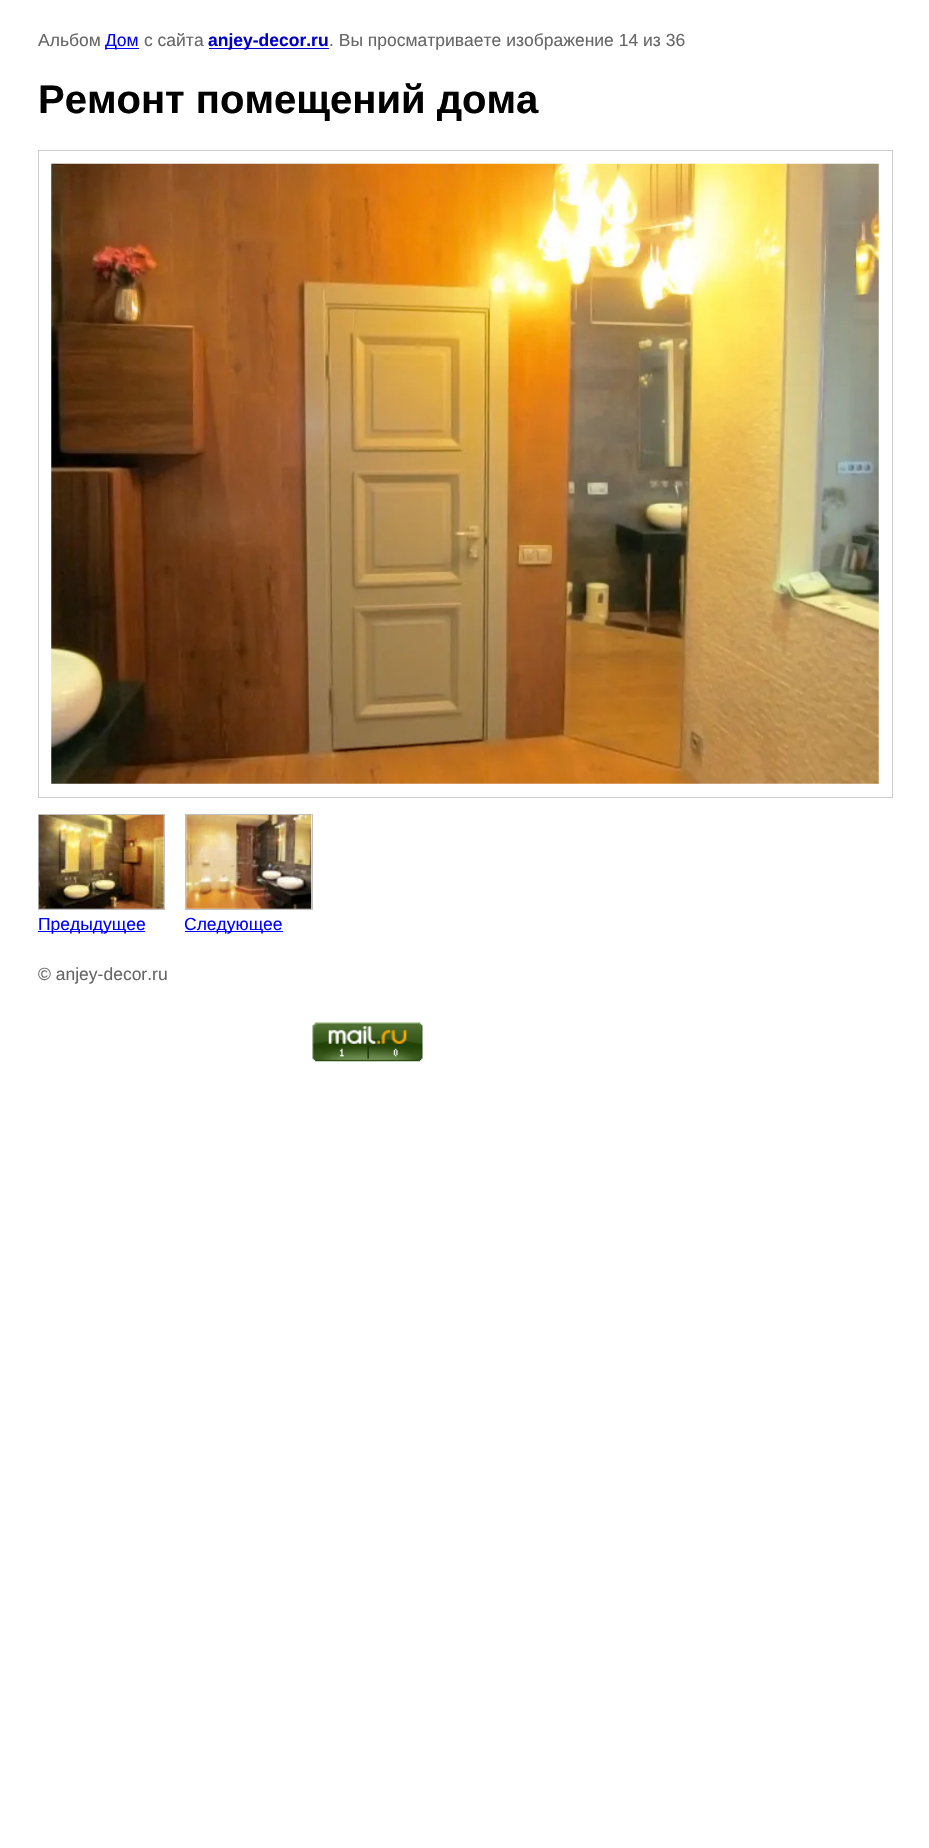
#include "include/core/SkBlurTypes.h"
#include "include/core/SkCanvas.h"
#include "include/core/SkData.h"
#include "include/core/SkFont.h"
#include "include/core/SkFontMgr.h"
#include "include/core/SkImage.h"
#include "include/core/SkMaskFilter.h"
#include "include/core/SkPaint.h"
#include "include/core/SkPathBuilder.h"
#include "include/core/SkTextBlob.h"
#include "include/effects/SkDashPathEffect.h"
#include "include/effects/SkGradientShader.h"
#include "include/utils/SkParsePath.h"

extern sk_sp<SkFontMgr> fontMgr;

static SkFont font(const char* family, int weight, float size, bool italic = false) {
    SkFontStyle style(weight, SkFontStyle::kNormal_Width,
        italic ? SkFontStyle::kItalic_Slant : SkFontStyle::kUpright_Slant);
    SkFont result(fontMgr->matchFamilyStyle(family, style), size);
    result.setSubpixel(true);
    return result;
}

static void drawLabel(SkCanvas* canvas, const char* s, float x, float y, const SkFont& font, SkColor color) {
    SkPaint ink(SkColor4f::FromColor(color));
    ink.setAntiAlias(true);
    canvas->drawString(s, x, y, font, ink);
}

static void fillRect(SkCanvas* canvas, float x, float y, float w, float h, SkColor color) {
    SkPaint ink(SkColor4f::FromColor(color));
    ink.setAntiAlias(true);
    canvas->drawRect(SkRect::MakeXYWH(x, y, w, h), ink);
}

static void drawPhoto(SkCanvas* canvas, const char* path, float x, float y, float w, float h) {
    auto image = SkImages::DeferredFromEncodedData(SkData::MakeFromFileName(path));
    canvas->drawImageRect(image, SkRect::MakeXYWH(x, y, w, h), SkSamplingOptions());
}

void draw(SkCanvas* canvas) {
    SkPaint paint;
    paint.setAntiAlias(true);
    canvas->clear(0xFFFFFFFF);
    SkFont font1 = font("Liberation Sans", 400, 17.5f);
    drawLabel(canvas, "Альбом", 38, 46, font1, 0xFF666666);
    fillRect(canvas, 105, 48, 34, 1, 0xFF0000FF);
    drawLabel(canvas, "Дом", 105, 46, font1, 0xFF0000FF);
    drawLabel(canvas, "с сайта", 144, 46, font1, 0xFF666666);
    fillRect(canvas, 209, 48, 120, 1, 0xFF0000CC);
    SkFont font2 = font("Liberation Sans", 700, 17.5f);
    drawLabel(canvas, "anjey-decor.ru", 208, 46, font2, 0xFF0000CC);
    drawLabel(canvas, ". Вы просматриваете изображение 14 из 36", 329, 46, font1, 0xFF666666);
    SkFont font3 = font("Liberation Sans", 700, 40);
    drawLabel(canvas, "Ремонт помещений дома", 38, 113, font3, 0xFF000000);
    paint.setStroke(true);
    paint.setStrokeWidth(1);
    paint.setColor(0xFFCCCCCC);
    canvas->drawRect(SkRect::MakeXYWH(38.5f, 150.5f, 854, 647), paint);
    drawPhoto(canvas, "assets/img1.png", 51, 163, 828, 621);
    paint.setColor(0xFFC0C0C0);
    canvas->drawRect(SkRect::MakeXYWH(38.5f, 814.5f, 126, 95), paint);
    drawPhoto(canvas, "assets/img2.png", 38, 815, 126, 94);
    fillRect(canvas, 38, 931, 107, 1, 0xFF0000FF);
    drawLabel(canvas, "Предыдущее", 38, 930, font1, 0xFF0000FF);
    canvas->drawRect(SkRect::MakeXYWH(185.5f, 814.5f, 127, 95), paint);
    drawPhoto(canvas, "assets/img3.png", 186, 815, 126, 94);
    fillRect(canvas, 185, 931, 98, 1, 0xFF0000FF);
    drawLabel(canvas, "Следующее", 184, 930, font1, 0xFF0000FF);
    drawLabel(canvas, "© anjey-decor.ru", 38, 980, font1, 0xFF666666);
    drawPhoto(canvas, "assets/img4.png", 312, 1022, 111, 40);
}
